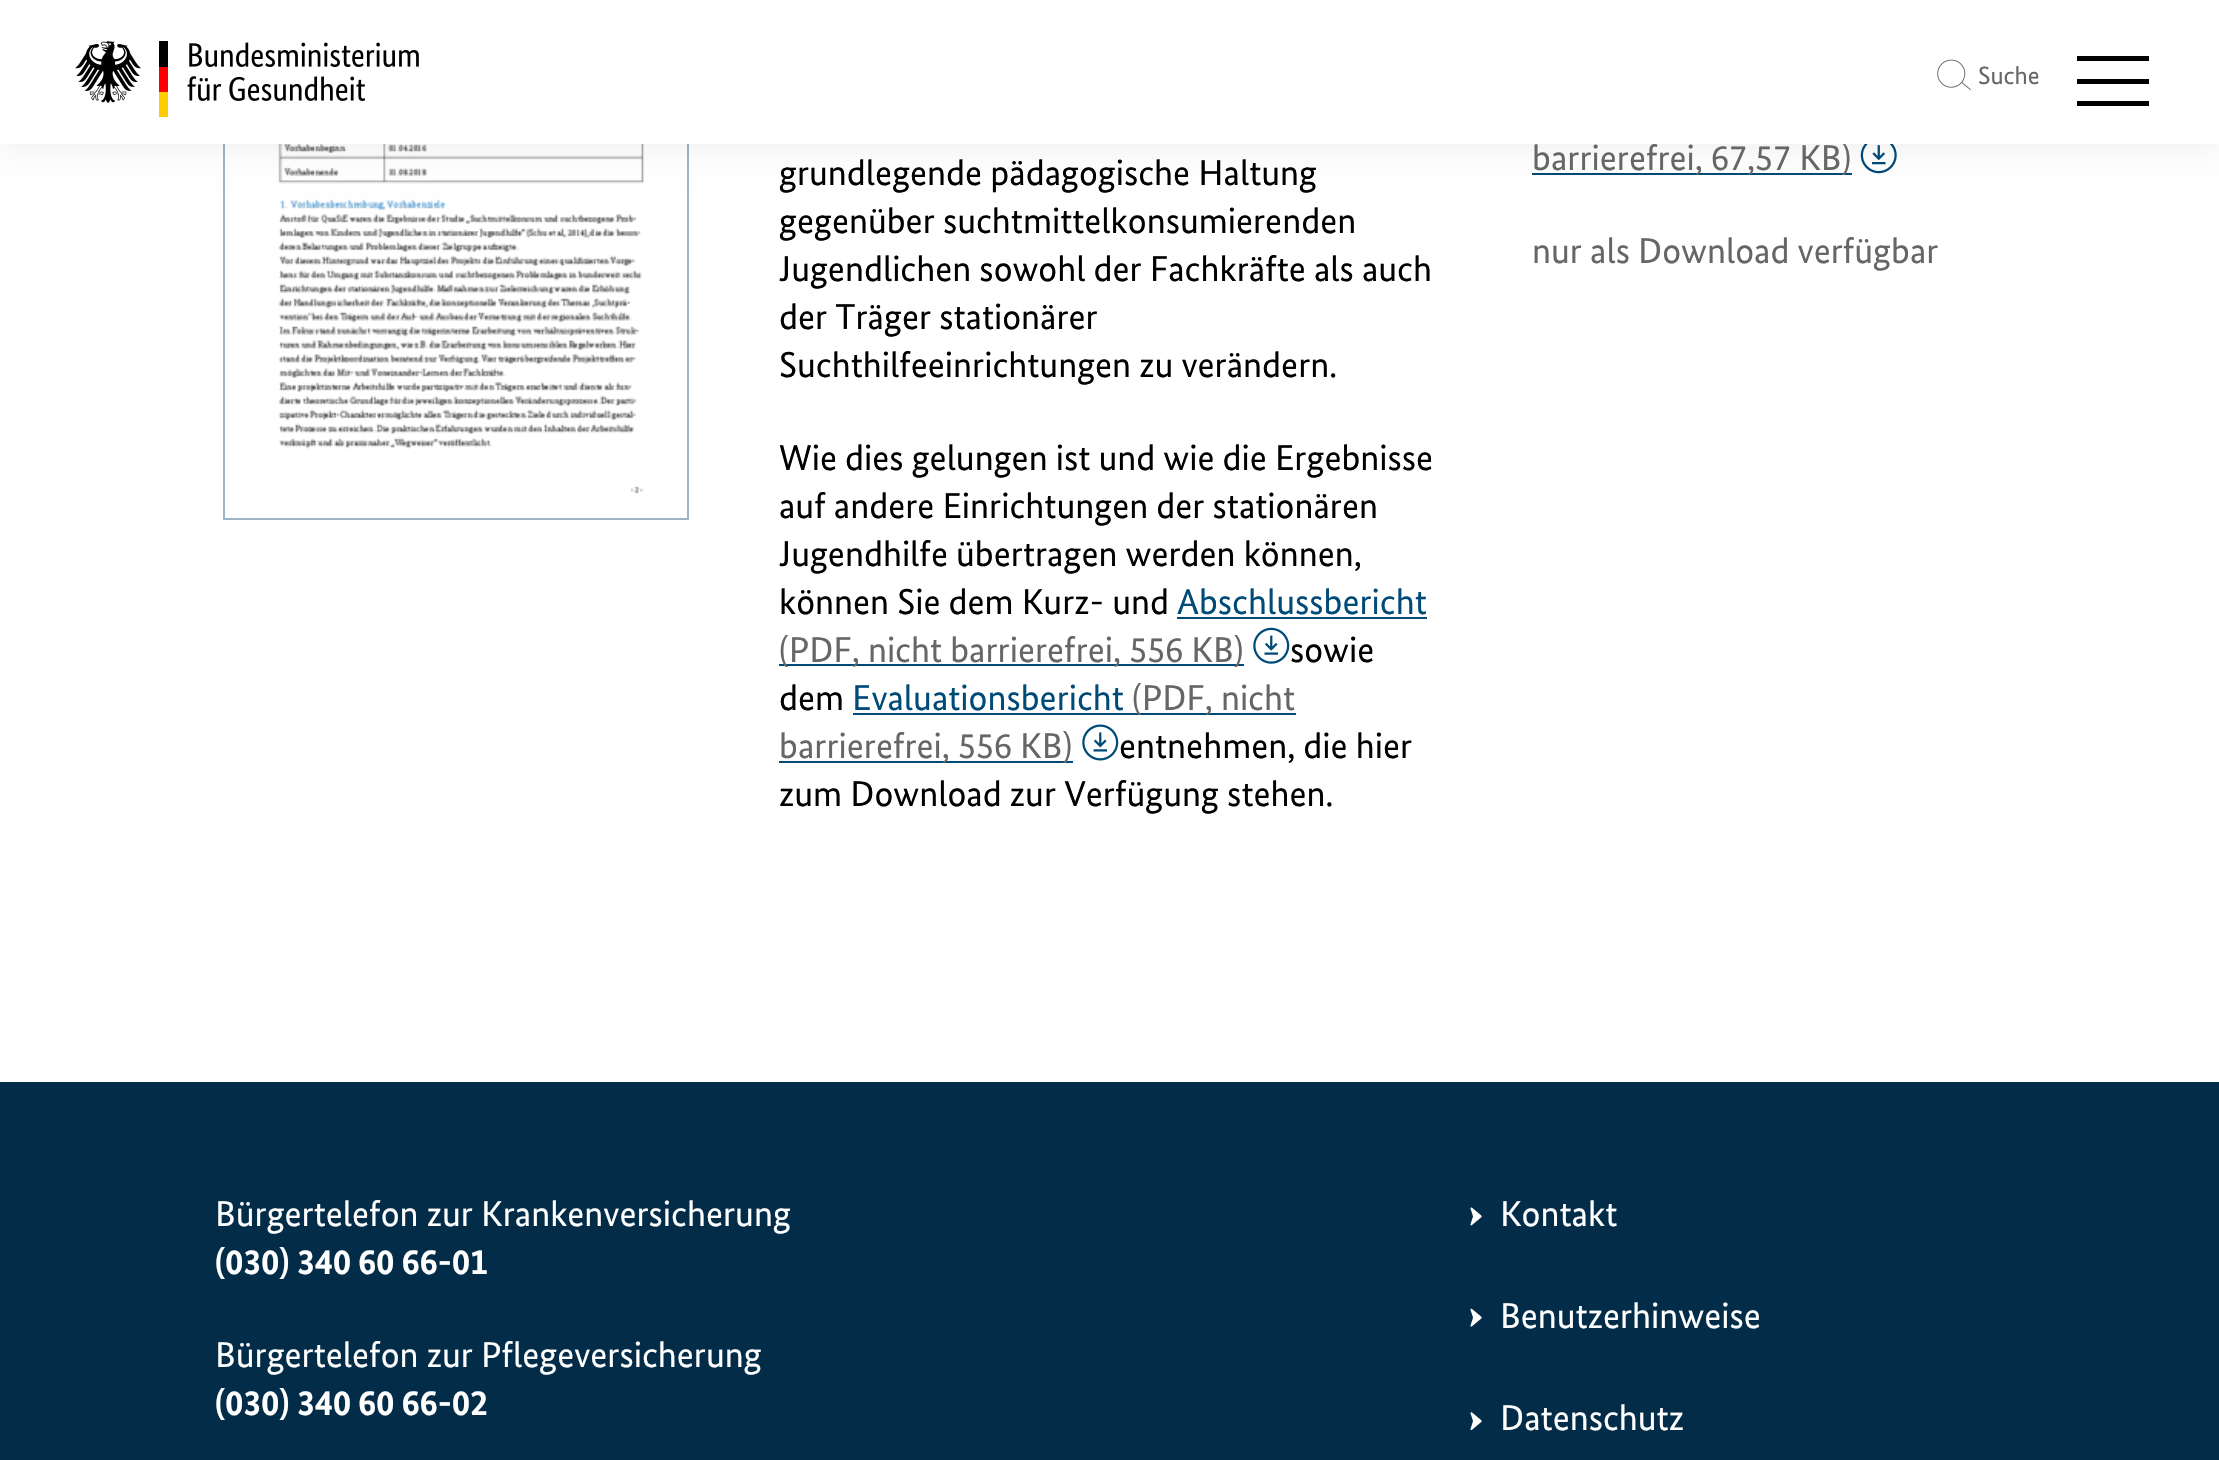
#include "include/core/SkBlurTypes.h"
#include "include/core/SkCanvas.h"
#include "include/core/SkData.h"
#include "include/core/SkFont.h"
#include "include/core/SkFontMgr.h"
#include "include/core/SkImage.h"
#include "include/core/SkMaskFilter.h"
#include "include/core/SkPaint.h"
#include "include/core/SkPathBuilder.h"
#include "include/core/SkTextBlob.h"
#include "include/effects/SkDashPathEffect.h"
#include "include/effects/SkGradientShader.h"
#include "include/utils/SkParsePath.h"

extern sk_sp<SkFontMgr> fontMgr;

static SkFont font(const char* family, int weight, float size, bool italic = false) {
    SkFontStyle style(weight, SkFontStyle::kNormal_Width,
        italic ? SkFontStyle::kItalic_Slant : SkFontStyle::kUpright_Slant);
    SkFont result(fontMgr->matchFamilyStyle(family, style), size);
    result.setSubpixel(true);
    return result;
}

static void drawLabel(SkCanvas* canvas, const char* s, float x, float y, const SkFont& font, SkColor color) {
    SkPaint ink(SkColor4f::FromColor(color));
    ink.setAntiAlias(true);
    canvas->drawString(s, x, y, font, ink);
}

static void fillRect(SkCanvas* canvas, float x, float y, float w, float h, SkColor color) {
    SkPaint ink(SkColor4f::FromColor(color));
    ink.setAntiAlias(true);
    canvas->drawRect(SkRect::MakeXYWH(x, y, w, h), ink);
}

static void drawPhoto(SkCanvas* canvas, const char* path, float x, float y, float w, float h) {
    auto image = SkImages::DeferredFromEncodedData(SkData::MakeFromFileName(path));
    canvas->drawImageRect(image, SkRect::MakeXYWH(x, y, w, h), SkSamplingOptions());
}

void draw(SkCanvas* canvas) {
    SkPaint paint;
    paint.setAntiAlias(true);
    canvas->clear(0xFFFFFFFF);
    paint.setStroke(true);
    paint.setStrokeWidth(2);
    paint.setColor(0xFF9CB5C7);
    canvas->drawRect(SkRect::MakeXYWH(224, -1, 464, 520), paint);
    drawPhoto(canvas, "assets/img3.png", 278, 144, 366, 350);
    fillRect(canvas, 1532, 173, 320, 2, 0xFF004A78);
    drawPhoto(canvas, "assets/img6.png", 1860, 144, 37, 30);
    paint.setStroke(false);
    paint.setColor(0x14000000);
    paint.setMaskFilter(SkMaskFilter::MakeBlur(kNormal_SkBlurStyle, 18));
    canvas->drawRect(SkRect::MakeXYWH(0, 0, 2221, 144), paint);
    paint.setMaskFilter(nullptr);
    SkFont font1 = font("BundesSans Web", 400, 36);
    drawLabel(canvas, "barrierefrei, 67,57 KB)", 1532, 170, font1, 0xFF666666);
    fillRect(canvas, 0, 0, 2219, 144, 0xFFFFFFFF);
    drawPhoto(canvas, "assets/img1.png", 75, 41, 344, 76);
    drawPhoto(canvas, "assets/img2.png", 1937, 59, 34, 31);
    SkFont font2 = font("BundesSans Web", 400, 25);
    drawLabel(canvas, "Suche", 1978, 84, font2, 0xFF666666);
    fillRect(canvas, 2077, 56, 72, 5, 0xFF000000);
    fillRect(canvas, 2077, 79, 72, 5, 0xFF000000);
    fillRect(canvas, 2077, 101, 72, 5, 0xFF000000);
    drawLabel(canvas, "grundlegende pädagogische Haltung", 779, 185, font1, 0xFF000000);
    drawLabel(canvas, "gegenüber suchtmittelkonsumierenden", 779, 233, font1, 0xFF000000);
    drawLabel(canvas, "Jugendlichen sowohl der Fachkräfte als auch", 779, 281, font1, 0xFF000000);
    drawLabel(canvas, "der Träger stationärer", 779, 329, font1, 0xFF000000);
    drawLabel(canvas, "Suchthilfeeinrichtungen zu verändern.", 779, 377, font1, 0xFF000000);
    drawLabel(canvas, "Wie dies gelungen ist und wie die Ergebnisse", 779, 470, font1, 0xFF000000);
    drawLabel(canvas, "auf andere Einrichtungen der stationären", 779, 518, font1, 0xFF000000);
    drawLabel(canvas, "Jugendhilfe übertragen werden können,", 779, 566, font1, 0xFF000000);
    drawLabel(canvas, "Abschlussbericht", 1177, 614, font1, 0xFF004A78);
    fillRect(canvas, 1177, 617, 250, 2, 0xFF004A78);
    fillRect(canvas, 779, 664, 465, 2, 0xFF004A78);
    drawLabel(canvas, "(PDF, nicht barrierefrei, 556 KB)", 779, 662, font1, 0xFF666666);
    drawPhoto(canvas, "assets/img4.png", 1253, 627, 37, 37);
    drawLabel(canvas, "können Sie dem Kurz- und", 779, 614, font1, 0xFF000000);
    drawLabel(canvas, "sowie", 1290, 662, font1, 0xFF000000);
    drawLabel(canvas, "Evaluationsbericht", 852, 710, font1, 0xFF004A78);
    fillRect(canvas, 853, 713, 443, 2, 0xFF004A78);
    drawLabel(canvas, "(PDF, nicht", 1132, 710, font1, 0xFF666666);
    fillRect(canvas, 779, 761, 294, 2, 0xFF004A78);
    drawLabel(canvas, "barrierefrei, 556 KB)", 779, 758, font1, 0xFF666666);
    drawPhoto(canvas, "assets/img5.png", 1082, 724, 37, 37);
    drawLabel(canvas, "dem", 779, 710, font1, 0xFF000000);
    drawLabel(canvas, "entnehmen, die hier", 1119, 758, font1, 0xFF000000);
    drawLabel(canvas, "zum Download zur Verfügung stehen.", 779, 806, font1, 0xFF000000);
    drawLabel(canvas, "nur als Download verfügbar", 1532, 263, font1, 0xFF666666);
    fillRect(canvas, 0, 1082, 2219, 378, 0xFF022C48);
    drawLabel(canvas, "Bürgertelefon zur Krankenversicherung", 215, 1226, font1, 0xFFFFFFFF);
    SkFont font3 = font("BundesSans Web", 700, 36);
    drawLabel(canvas, "(030) 340 60 66-01", 215, 1274, font3, 0xFFFFFFFF);
    drawLabel(canvas, "Bürgertelefon zur Pflegeversicherung", 215, 1367, font1, 0xFFFFFFFF);
    drawLabel(canvas, "(030) 340 60 66-02", 215, 1415, font3, 0xFFFFFFFF);
    drawPhoto(canvas, "assets/img7.png", 1470, 1207, 12, 19);
    drawLabel(canvas, "Kontakt", 1500, 1226, font1, 0xFFFFFFFF);
    drawPhoto(canvas, "assets/img8.png", 1470, 1308, 12, 19);
    drawLabel(canvas, "Benutzerhinweise", 1500, 1328, font1, 0xFFFFFFFF);
    drawPhoto(canvas, "assets/img9.png", 1470, 1412, 12, 18);
    drawLabel(canvas, "Datenschutz", 1500, 1430, font1, 0xFFFFFFFF);
}
